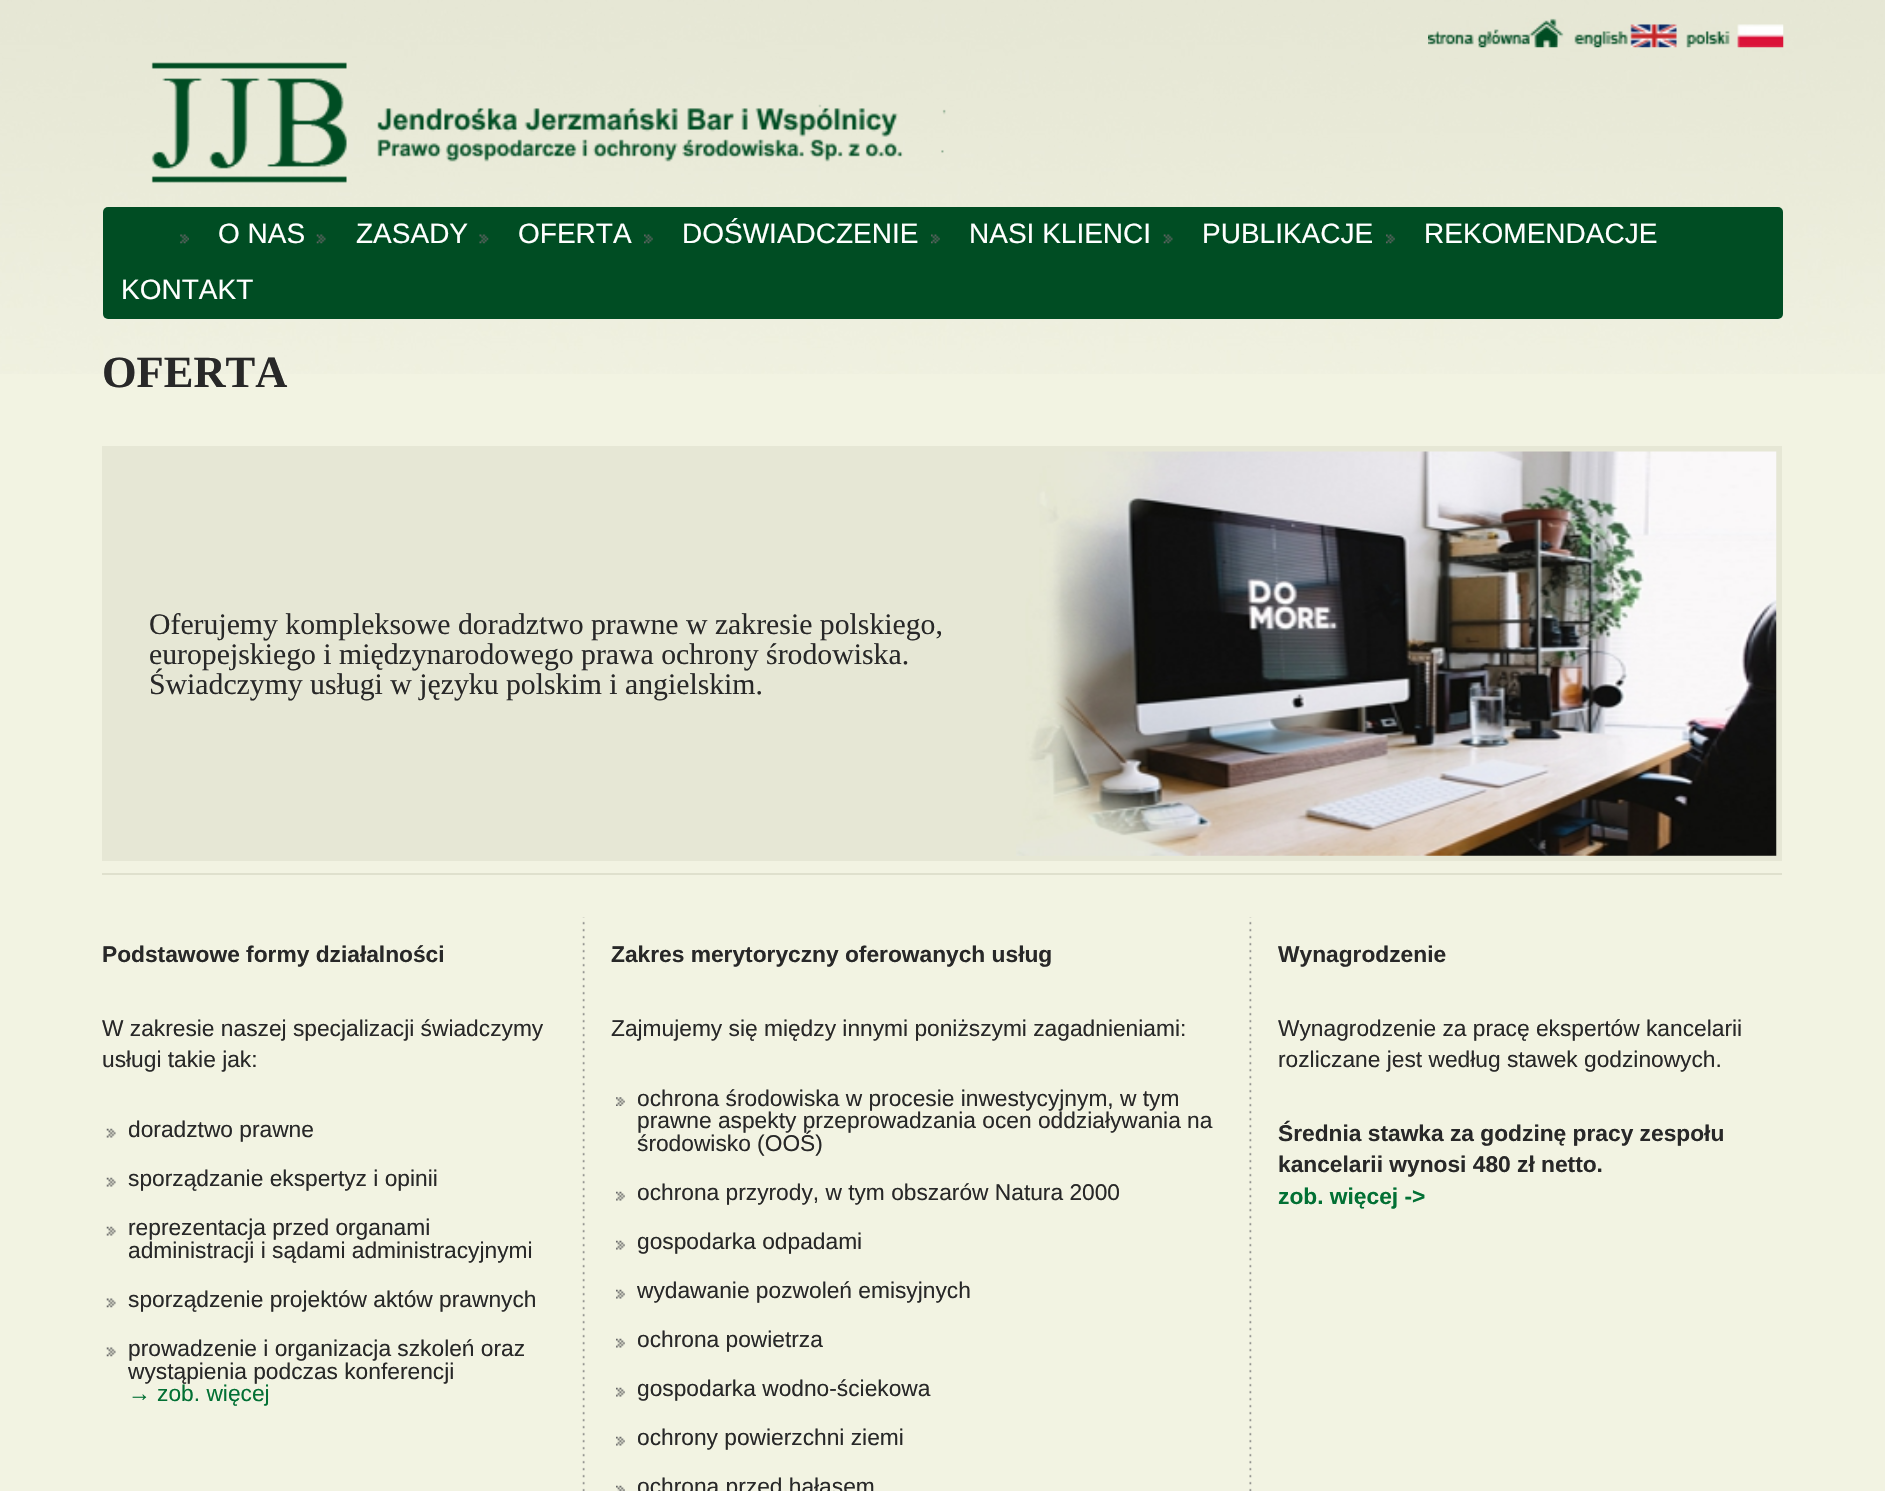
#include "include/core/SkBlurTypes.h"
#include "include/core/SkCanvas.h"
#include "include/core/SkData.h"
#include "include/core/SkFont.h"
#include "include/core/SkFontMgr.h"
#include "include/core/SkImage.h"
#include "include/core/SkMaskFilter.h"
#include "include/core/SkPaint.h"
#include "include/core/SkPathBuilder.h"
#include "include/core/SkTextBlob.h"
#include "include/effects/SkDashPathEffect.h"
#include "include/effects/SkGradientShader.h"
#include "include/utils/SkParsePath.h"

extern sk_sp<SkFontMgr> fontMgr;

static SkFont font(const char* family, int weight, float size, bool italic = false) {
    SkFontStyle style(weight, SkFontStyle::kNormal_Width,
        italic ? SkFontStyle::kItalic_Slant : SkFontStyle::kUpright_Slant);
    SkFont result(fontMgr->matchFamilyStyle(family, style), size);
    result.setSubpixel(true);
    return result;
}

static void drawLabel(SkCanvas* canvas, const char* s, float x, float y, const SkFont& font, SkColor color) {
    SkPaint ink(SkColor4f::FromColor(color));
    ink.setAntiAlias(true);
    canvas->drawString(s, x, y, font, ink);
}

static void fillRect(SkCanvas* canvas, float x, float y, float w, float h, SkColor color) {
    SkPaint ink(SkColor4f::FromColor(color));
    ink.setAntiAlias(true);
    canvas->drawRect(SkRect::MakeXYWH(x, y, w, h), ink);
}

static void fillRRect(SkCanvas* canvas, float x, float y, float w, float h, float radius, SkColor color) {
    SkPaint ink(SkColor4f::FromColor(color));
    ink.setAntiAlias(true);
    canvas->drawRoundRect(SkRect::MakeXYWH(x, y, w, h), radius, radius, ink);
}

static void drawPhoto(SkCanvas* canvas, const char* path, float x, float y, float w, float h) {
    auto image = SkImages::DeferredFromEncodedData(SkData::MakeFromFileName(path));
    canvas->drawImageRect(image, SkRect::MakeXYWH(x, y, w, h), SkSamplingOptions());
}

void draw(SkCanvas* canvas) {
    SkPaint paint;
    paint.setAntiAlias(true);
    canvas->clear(0xFFF2F3E2);
    drawPhoto(canvas, "assets/img1.png", 0, 0, 1885, 374);
    drawPhoto(canvas, "assets/img2.png", 1428, 18, 136, 30);
    drawPhoto(canvas, "assets/img3.png", 1574, 24, 103, 24);
    drawPhoto(canvas, "assets/img4.png", 1686, 24, 98, 24);
    drawPhoto(canvas, "assets/img5.png", 151, 62, 795, 121);
    fillRRect(canvas, 103, 207, 1680, 112, 5, 0xFF004D23);
    drawPhoto(canvas, "assets/img6.png", 180, 234, 9, 10);
    SkFont font1 = font("Liberation Sans", 400, 28);
    drawLabel(canvas, "O NAS", 218, 243, font1, 0xFFFFFFFF);
    drawPhoto(canvas, "assets/img7.png", 316, 234, 10, 10);
    drawLabel(canvas, "ZASADY", 356, 243, font1, 0xFFFFFFFF);
    drawPhoto(canvas, "assets/img8.png", 479, 234, 10, 10);
    drawLabel(canvas, "OFERTA", 518, 243, font1, 0xFFFFFFFF);
    drawPhoto(canvas, "assets/img9.png", 644, 234, 9, 10);
    drawLabel(canvas, "DOŚWIADCZENIE", 682, 243, font1, 0xFFFFFFFF);
    drawPhoto(canvas, "assets/img9.png", 931, 234, 9, 10);
    drawLabel(canvas, "NASI KLIENCI", 969, 243, font1, 0xFFFFFFFF);
    drawPhoto(canvas, "assets/img7.png", 1163, 234, 10, 10);
    drawLabel(canvas, "PUBLIKACJE", 1202, 243, font1, 0xFFFFFFFF);
    drawPhoto(canvas, "assets/img9.png", 1386, 234, 9, 10);
    drawLabel(canvas, "REKOMENDACJE", 1424, 243, font1, 0xFFFFFFFF);
    drawLabel(canvas, "KONTAKT", 121, 299, font1, 0xFFFFFFFF);
    SkFont font2 = font("Liberation Serif", 700, 44.5f);
    drawLabel(canvas, "OFERTA", 102, 387, font2, 0xFF282828);
    fillRect(canvas, 102, 446, 1680, 415, 0xFFE6E7D5);
    SkFont font3 = font("Liberation Serif", 400, 29.75f);
    drawLabel(canvas, "Oferujemy kompleksowe doradztwo prawne w zakresie polskiego,", 149, 634, font3, 0xFF282828);
    drawLabel(canvas, "europejskiego i międzynarodowego prawa ochrony środowiska.", 149, 664, font3, 0xFF282828);
    drawLabel(canvas, "Świadczymy usługi w języku polskim i angielskim.", 149, 694, font3, 0xFF282828);
    drawPhoto(canvas, "assets/img10.png", 1016, 451, 761, 405);
    fillRect(canvas, 102, 873, 1680, 2, 0xFFDFE0CD);
    SkFont font4 = font("Liberation Sans", 700, 22.75f);
    drawLabel(canvas, "Podstawowe formy działalności", 102, 962, font4, 0xFF282828);
    SkFont font5 = font("Liberation Sans", 400, 22.75f);
    drawLabel(canvas, "W zakresie naszej specjalizacji świadczymy", 102, 1036, font5, 0xFF282828);
    drawLabel(canvas, "usługi takie jak:", 102, 1067, font5, 0xFF282828);
    drawPhoto(canvas, "assets/img11.png", 106, 1128, 10, 10);
    drawLabel(canvas, "doradztwo prawne", 128, 1137, font5, 0xFF282828);
    drawPhoto(canvas, "assets/img11.png", 106, 1177, 10, 10);
    drawLabel(canvas, "sporządzanie ekspertyz i opinii", 128, 1186, font5, 0xFF282828);
    drawPhoto(canvas, "assets/img11.png", 106, 1226, 10, 10);
    drawLabel(canvas, "reprezentacja przed organami", 128, 1235, font5, 0xFF282828);
    drawLabel(canvas, "administracji i sądami administracyjnymi", 128, 1258, font5, 0xFF282828);
    drawPhoto(canvas, "assets/img12.png", 106, 1298, 10, 10);
    drawLabel(canvas, "sporządzenie projektów aktów prawnych", 128, 1307, font5, 0xFF282828);
    drawPhoto(canvas, "assets/img12.png", 106, 1347, 10, 10);
    drawLabel(canvas, "prowadzenie i organizacja szkoleń oraz", 128, 1356, font5, 0xFF282828);
    drawLabel(canvas, "wystąpienia podczas konferencji", 128, 1379, font5, 0xFF282828);
    drawLabel(canvas, "→ zob. więcej", 128, 1401, font5, 0xFF027034);
    drawPhoto(canvas, "assets/img13.png", 582, 917, 3, 574);
    drawLabel(canvas, "Zakres merytoryczny oferowanych usług", 611, 962, font4, 0xFF282828);
    drawLabel(canvas, "Zajmujemy się między innymi poniższymi zagadnieniami:", 611, 1036, font5, 0xFF282828);
    drawPhoto(canvas, "assets/img14.png", 616, 1097, 9, 9);
    drawLabel(canvas, "ochrona środowiska w procesie inwestycyjnym, w tym", 637, 1106, font5, 0xFF282828);
    drawLabel(canvas, "prawne aspekty przeprowadzania ocen oddziaływania na", 637, 1128, font5, 0xFF282828);
    drawLabel(canvas, "środowisko (OOŚ)", 637, 1151, font5, 0xFF282828);
    drawPhoto(canvas, "assets/img15.png", 616, 1191, 9, 10);
    drawLabel(canvas, "ochrona przyrody, w tym obszarów Natura 2000", 637, 1200, font5, 0xFF282828);
    drawPhoto(canvas, "assets/img15.png", 616, 1240, 9, 10);
    drawLabel(canvas, "gospodarka odpadami", 637, 1249, font5, 0xFF282828);
    drawPhoto(canvas, "assets/img15.png", 616, 1289, 9, 10);
    drawLabel(canvas, "wydawanie pozwoleń emisyjnych", 637, 1298, font5, 0xFF282828);
    drawPhoto(canvas, "assets/img15.png", 616, 1338, 9, 10);
    drawLabel(canvas, "ochrona powietrza", 637, 1347, font5, 0xFF282828);
    drawPhoto(canvas, "assets/img15.png", 616, 1387, 9, 10);
    drawLabel(canvas, "gospodarka wodno-ściekowa", 637, 1396, font5, 0xFF282828);
    drawPhoto(canvas, "assets/img15.png", 616, 1436, 9, 10);
    drawLabel(canvas, "ochrony powierzchni ziemi", 637, 1445, font5, 0xFF282828);
    drawPhoto(canvas, "assets/img16.png", 616, 1485, 9, 6);
    drawLabel(canvas, "ochrona przed hałasem", 637, 1494, font5, 0xFF282828);
    drawPhoto(canvas, "assets/img17.png", 1249, 917, 3, 574);
    drawLabel(canvas, "Wynagrodzenie", 1278, 962, font4, 0xFF282828);
    drawLabel(canvas, "Wynagrodzenie za pracę ekspertów kancelarii", 1278, 1036, font5, 0xFF282828);
    drawLabel(canvas, "rozliczane jest według stawek godzinowych.", 1278, 1067, font5, 0xFF282828);
    drawLabel(canvas, "Średnia stawka za godzinę pracy zespołu", 1278, 1141, font4, 0xFF282828);
    drawLabel(canvas, "kancelarii wynosi 480 zł netto.", 1278, 1172, font4, 0xFF282828);
    drawLabel(canvas, "zob. więcej ->", 1278, 1204, font4, 0xFF027034);
}
